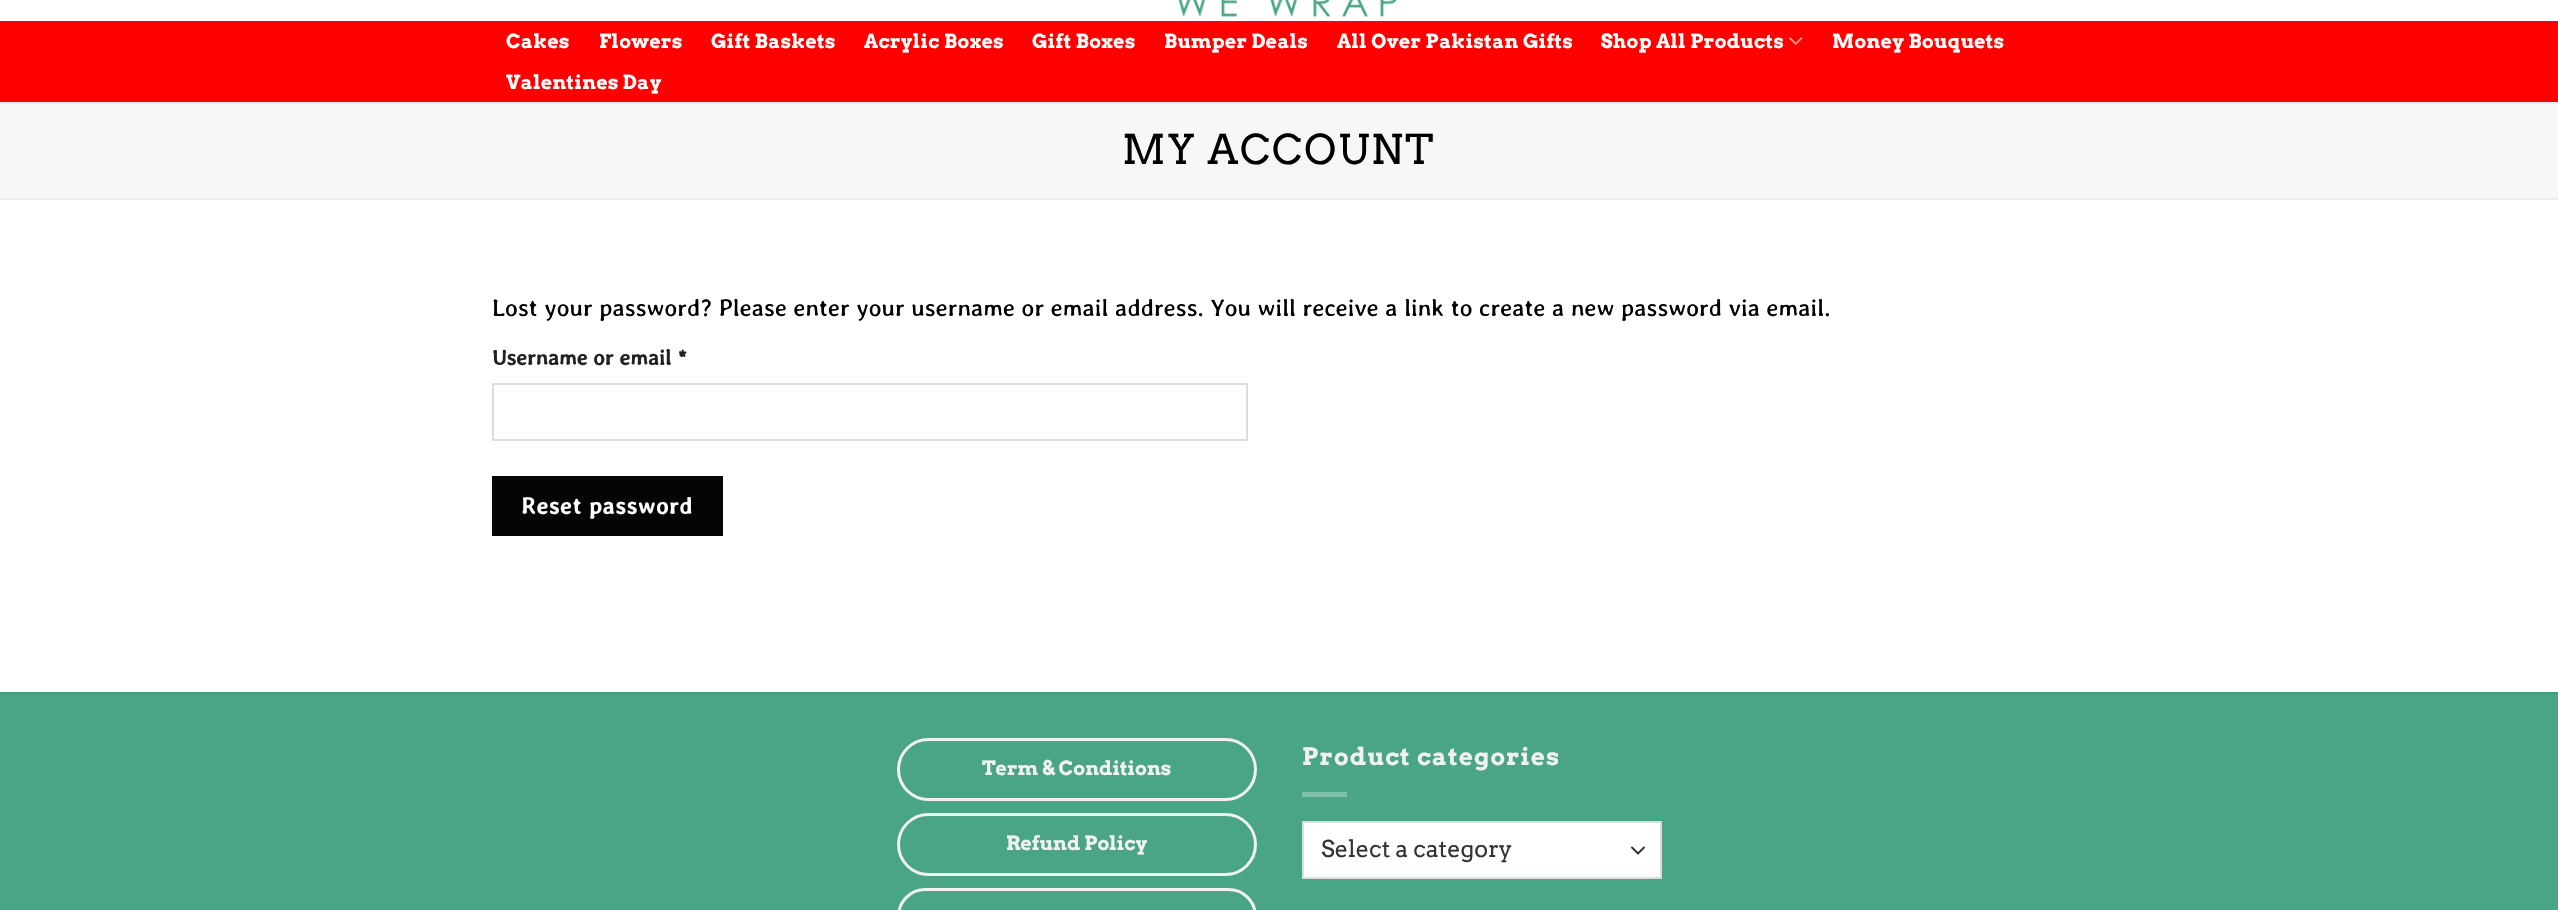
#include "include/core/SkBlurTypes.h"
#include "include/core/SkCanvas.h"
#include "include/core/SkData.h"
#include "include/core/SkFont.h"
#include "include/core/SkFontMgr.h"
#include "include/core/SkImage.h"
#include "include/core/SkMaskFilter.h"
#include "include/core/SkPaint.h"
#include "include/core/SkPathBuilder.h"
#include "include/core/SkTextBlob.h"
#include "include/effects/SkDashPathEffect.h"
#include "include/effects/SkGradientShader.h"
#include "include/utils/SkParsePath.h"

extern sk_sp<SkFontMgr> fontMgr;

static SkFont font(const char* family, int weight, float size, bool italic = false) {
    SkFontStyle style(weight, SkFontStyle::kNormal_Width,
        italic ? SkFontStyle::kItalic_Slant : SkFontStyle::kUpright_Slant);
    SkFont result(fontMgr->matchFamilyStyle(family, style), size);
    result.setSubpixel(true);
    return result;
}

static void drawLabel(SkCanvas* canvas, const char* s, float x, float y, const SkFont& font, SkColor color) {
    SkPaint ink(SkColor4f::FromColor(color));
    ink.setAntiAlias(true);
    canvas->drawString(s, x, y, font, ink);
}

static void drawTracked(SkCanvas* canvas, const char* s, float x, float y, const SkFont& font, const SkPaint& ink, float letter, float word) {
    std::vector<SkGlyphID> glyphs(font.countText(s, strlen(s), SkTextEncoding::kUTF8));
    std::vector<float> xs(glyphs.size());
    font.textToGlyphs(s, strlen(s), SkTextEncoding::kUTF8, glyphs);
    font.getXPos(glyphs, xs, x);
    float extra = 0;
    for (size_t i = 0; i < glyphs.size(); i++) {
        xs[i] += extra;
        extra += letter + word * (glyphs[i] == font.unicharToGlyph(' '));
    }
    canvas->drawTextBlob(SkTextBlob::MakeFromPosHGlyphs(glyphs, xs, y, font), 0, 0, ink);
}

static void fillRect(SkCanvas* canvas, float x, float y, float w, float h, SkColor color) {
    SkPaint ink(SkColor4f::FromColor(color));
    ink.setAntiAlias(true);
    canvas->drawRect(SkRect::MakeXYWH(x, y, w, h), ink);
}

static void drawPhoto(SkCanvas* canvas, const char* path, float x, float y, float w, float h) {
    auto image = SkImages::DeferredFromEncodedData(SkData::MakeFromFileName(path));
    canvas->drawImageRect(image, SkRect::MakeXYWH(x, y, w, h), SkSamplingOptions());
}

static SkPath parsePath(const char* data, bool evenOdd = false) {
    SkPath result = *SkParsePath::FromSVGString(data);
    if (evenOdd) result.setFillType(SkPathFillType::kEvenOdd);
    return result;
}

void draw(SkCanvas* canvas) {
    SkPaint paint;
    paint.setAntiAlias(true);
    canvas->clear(0xFFFFFFFF);
    drawPhoto(canvas, "assets/img1.png", 1178, 0, 219, 17);
    fillRect(canvas, 0, 21, 2558, 81, 0xFFFF0000);
    SkFont font1 = font("Arvo", 700, 19.25f);
    paint.setColor(0xFFFFFFFF);
    drawTracked(canvas, "Cakes", 506, 48, font1, paint, 0.4f, 0);
    drawTracked(canvas, "Flowers", 599, 48, font1, paint, 0.4f, 0);
    drawTracked(canvas, "Gift Baskets", 711, 48, font1, paint, 0.4f, 0);
    drawTracked(canvas, "Acrylic Boxes", 864, 48, font1, paint, 0.4f, 0);
    drawTracked(canvas, "Gift Boxes", 1032, 48, font1, paint, 0.4f, 0);
    drawTracked(canvas, "Bumper Deals", 1164, 48, font1, paint, 0.4f, 0);
    drawTracked(canvas, "All Over Pakistan Gifts", 1337, 48, font1, paint, 0.4f, 0);
    drawTracked(canvas, "Shop All Products", 1601, 48, font1, paint, 0.4f, 0);
    drawPhoto(canvas, "assets/img2.png", 1789, 37, 14, 8);
    drawTracked(canvas, "Money Bouquets", 1832, 48, font1, paint, 0.4f, 0);
    drawTracked(canvas, "Valentines Day", 506, 89, font1, paint, 0.4f, 0);
    fillRect(canvas, 0, 104, 2558, 94, 0xFFF7F7F7);
    fillRect(canvas, 0, 102, 2558, 2, 0xFFECECEC);
    fillRect(canvas, 0, 198, 2558, 2, 0xFFECECEC);
    SkFont font2 = font("Arvo", 400, 40.75f);
    paint.setColor(0xFF000000);
    drawTracked(canvas, "MY ACCOUNT", 1122, 164, font2, paint, 2, 0);
    SkFont font3 = font("Averia Libre", 400, 24);
    drawLabel(canvas, "Lost your password? Please enter your username or email address. You will receive a link to create a new password via email.", 492, 316, font3, 0xFF000000);
    SkFont font4 = font("Averia Libre", 700, 21.5f);
    drawLabel(canvas, "Username or email *", 492, 365, font4, 0xFF222222);
    paint.setStroke(true);
    paint.setStrokeWidth(2);
    paint.setColor(0xFFDDDDDD);
    canvas->drawRect(SkRect::MakeXYWH(493, 384, 754, 56), paint);
    fillRect(canvas, 492, 476, 231, 60, 0xFF050505);
    SkFont font5 = font("Averia Libre", 700, 23.25f);
    paint.setStroke(false);
    paint.setColor(0xFFFFFFFF);
    drawTracked(canvas, "Reset password", 521, 514, font5, paint, 0.75f, 0);
    fillRect(canvas, 0, 694, 2558, 216, 0xFF49A584);
    fillRect(canvas, 0, 692, 2558, 2, 0xFF459D7D);
    paint.setStroke(true);
    paint.setStrokeWidth(3);
    paint.setColor(0xFFF1F1F1);
    canvas->drawRoundRect(SkRect::MakeXYWH(898.5f, 739.5f, 357, 60), 30, 30, paint);
    SkFont font6 = font("Arvo", 700, 19.5f);
    drawLabel(canvas, "Term & Conditions", 982, 775, font6, 0xFFF1F1F1);
    canvas->drawRoundRect(SkRect::MakeXYWH(898.5f, 814.5f, 357, 60), 30, 30, paint);
    drawLabel(canvas, "Refund Policy", 1006, 850, font6, 0xFFF1F1F1);
    canvas->drawRoundRect(SkRect::MakeXYWH(898.5f, 889.5f, 357, 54), 30, 30, paint);
    SkFont font7 = font("Arvo", 700, 24);
    paint.setStroke(false);
    drawTracked(canvas, "Product categories", 1302, 765, font7, paint, 1.25f, 0);
    fillRect(canvas, 1302, 792, 45, 5, 0xFF80C0A9);
    fillRect(canvas, 1304, 823, 356, 54, 0xFFFFFFFF);
    paint.setStroke(true);
    paint.setStrokeWidth(2);
    paint.setStrokeCap(SkPaint::kRound_Cap);
    paint.setStrokeJoin(SkPaint::kRound_Join);
    paint.setColor(0xFF333333);
    canvas->drawPath(parsePath("M1632 847.5L1638 853.5L1644 847.5"), paint);
    paint.setStrokeCap(SkPaint::kButt_Cap);
    paint.setStrokeJoin(SkPaint::kMiter_Join);
    paint.setColor(0xFFDDDDDD);
    canvas->drawRect(SkRect::MakeXYWH(1303, 822, 358, 56), paint);
    SkFont font8 = font("Arvo", 400, 23.25f);
    drawLabel(canvas, "Select a category", 1321, 857, font8, 0xFF333333);
}
